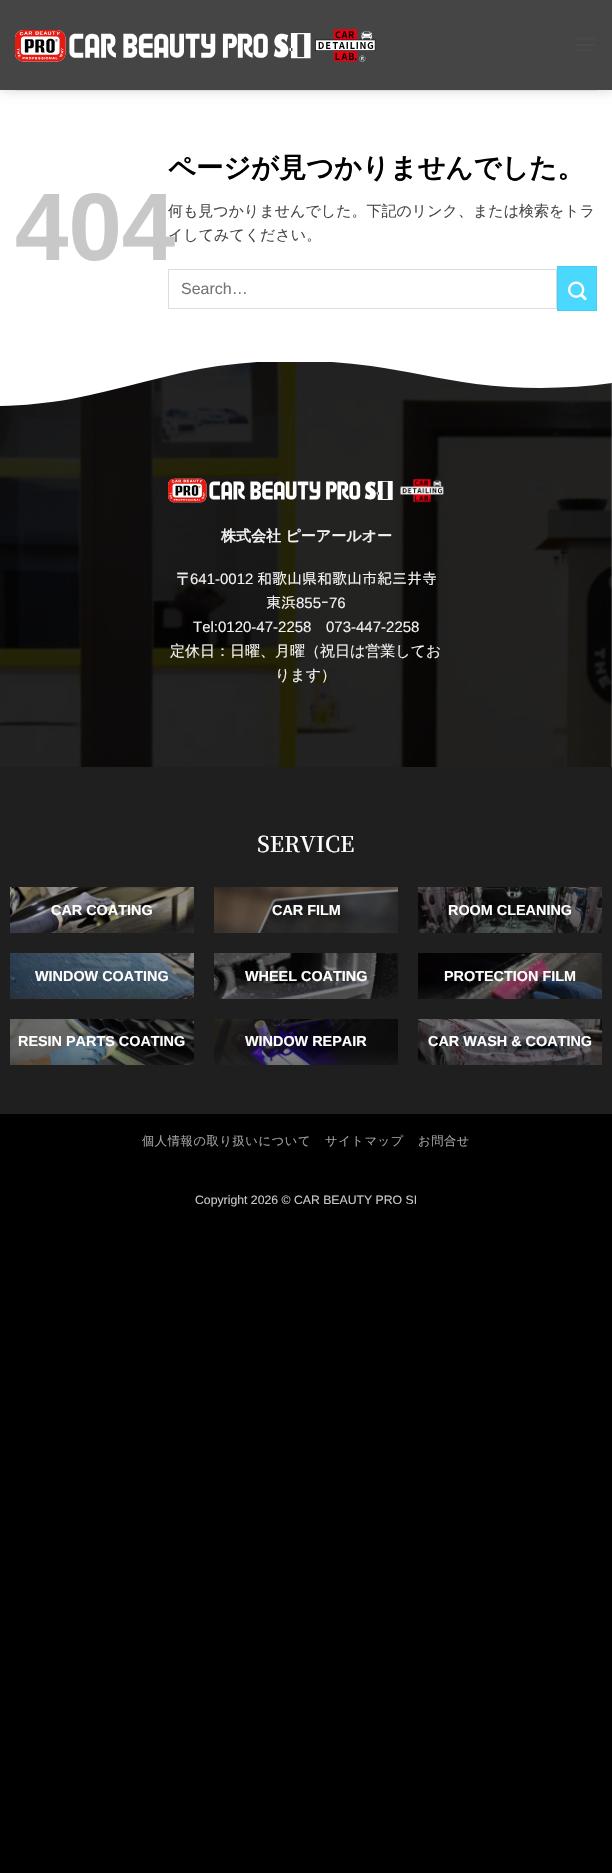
#include "include/core/SkBlurTypes.h"
#include "include/core/SkCanvas.h"
#include "include/core/SkData.h"
#include "include/core/SkFont.h"
#include "include/core/SkFontMgr.h"
#include "include/core/SkImage.h"
#include "include/core/SkMaskFilter.h"
#include "include/core/SkPaint.h"
#include "include/core/SkPathBuilder.h"
#include "include/core/SkTextBlob.h"
#include "include/effects/SkDashPathEffect.h"
#include "include/effects/SkGradientShader.h"
#include "include/utils/SkParsePath.h"

extern sk_sp<SkFontMgr> fontMgr;

static SkFont font(const char* family, int weight, float size, bool italic = false) {
    SkFontStyle style(weight, SkFontStyle::kNormal_Width,
        italic ? SkFontStyle::kItalic_Slant : SkFontStyle::kUpright_Slant);
    SkFont result(fontMgr->matchFamilyStyle(family, style), size);
    result.setSubpixel(true);
    return result;
}

static void drawLabel(SkCanvas* canvas, const char* s, float x, float y, const SkFont& font, SkColor color) {
    SkPaint ink(SkColor4f::FromColor(color));
    ink.setAntiAlias(true);
    canvas->drawString(s, x, y, font, ink);
}

static void drawTracked(SkCanvas* canvas, const char* s, float x, float y, const SkFont& font, const SkPaint& ink, float letter, float word) {
    std::vector<SkGlyphID> glyphs(font.countText(s, strlen(s), SkTextEncoding::kUTF8));
    std::vector<float> xs(glyphs.size());
    font.textToGlyphs(s, strlen(s), SkTextEncoding::kUTF8, glyphs);
    font.getXPos(glyphs, xs, x);
    float extra = 0;
    for (size_t i = 0; i < glyphs.size(); i++) {
        xs[i] += extra;
        extra += letter + word * (glyphs[i] == font.unicharToGlyph(' '));
    }
    canvas->drawTextBlob(SkTextBlob::MakeFromPosHGlyphs(glyphs, xs, y, font), 0, 0, ink);
}

static void fillRect(SkCanvas* canvas, float x, float y, float w, float h, SkColor color) {
    SkPaint ink(SkColor4f::FromColor(color));
    ink.setAntiAlias(true);
    canvas->drawRect(SkRect::MakeXYWH(x, y, w, h), ink);
}

static void drawPhoto(SkCanvas* canvas, const char* path, float x, float y, float w, float h) {
    auto image = SkImages::DeferredFromEncodedData(SkData::MakeFromFileName(path));
    canvas->drawImageRect(image, SkRect::MakeXYWH(x, y, w, h), SkSamplingOptions());
}

static SkPath parsePath(const char* data, bool evenOdd = false) {
    SkPath result = *SkParsePath::FromSVGString(data);
    if (evenOdd) result.setFillType(SkPathFillType::kEvenOdd);
    return result;
}

void draw(SkCanvas* canvas) {
    SkPaint paint;
    paint.setAntiAlias(true);
    canvas->clear(0xFF000000);
    fillRect(canvas, 0, 90, 612, 677, 0xFFFFFFFF);
    paint.setColor(0x26000000);
    paint.setMaskFilter(SkMaskFilter::MakeBlur(kNormal_SkBlurStyle, 5));
    canvas->drawRect(SkRect::MakeXYWH(1, 1, 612, 90), paint);
    paint.setMaskFilter(nullptr);
    fillRect(canvas, 0, 0, 612, 90, 0xFF454545);
    drawPhoto(canvas, "assets/img1.png", 15, 29, 361, 33);
    drawPhoto(canvas, "assets/img2.png", 576, 38, 19, 13);
    fillRect(canvas, 15, 90, 582, 1, 0xFFDBDADA);
    SkFont font1 = font("Liberation Sans", 700, 96);
    drawLabel(canvas, "404", 15, 260, font1, 0xFFC9C8C8);
    SkFont font2 = font("WenQuanYi Zen Hei", 700, 27.25f);
    drawLabel(canvas, "ページが見つかりませんでした。", 168, 177, font2, 0xFF000000);
    SkFont font3 = font("WenQuanYi Zen Hei", 500, 15);
    drawLabel(canvas, "何も見つかりませんでした。下記のリンク、または検索をトラ", 168, 216, font3, 0xFF4C4747);
    drawLabel(canvas, "イしてみてください。", 168, 240, font3, 0xFF4C4747);
    paint.setStroke(true);
    paint.setStrokeWidth(1);
    paint.setColor(0xFFDDDDDD);
    canvas->drawRect(SkRect::MakeXYWH(168.5f, 269.5f, 388, 39), paint);
    SkFont font4 = font("Liberation Sans", 400, 16);
    drawLabel(canvas, "Search…", 181, 294, font4, 0xFF757575);
    paint.setStroke(false);
    paint.setColor(0xFF4AD8FF);
    canvas->drawRect(SkRect::MakeXYWH(557.5f, 266.5f, 39, 44), paint);
    paint.setStroke(true);
    paint.setColor(0xFF46CDF2);
    canvas->drawRect(SkRect::MakeXYWH(557.5f, 266.5f, 39, 44), paint);
    drawPhoto(canvas, "assets/img3.png", 568, 281, 19, 20);
    drawPhoto(canvas, "assets/img4.png", 0, 362, 612, 405);
    canvas->save();
    canvas->clipRect(SkRect::MakeXYWH(0, 362, 612, 49));
    paint.setStroke(false);
    paint.setColor(0xFFFFFFFF);
    canvas->drawPath(parsePath("M476 384C440 379 406 371 371 366C321 359 269 359 218 366C170 373 119 390 71 399C29 406-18 410-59 400V360H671V371C609 388 541 392 476 384Z"), paint);
    canvas->restore();
    drawPhoto(canvas, "assets/img5.png", 168, 478, 276, 25);
    SkFont font5 = font("WenQuanYi Zen Hei", 700, 15);
    drawLabel(canvas, "株式会社 ピーアールオー", 221, 541, font5, 0xFFF1F1F1);
    SkFont font6 = font("IPAPGothic", 400, 15);
    drawLabel(canvas, "〒", 175, 584, font6, 0xFFF1F1F1);
    SkFont font7 = font("Liberation Sans", 400, 15);
    drawLabel(canvas, "641-0012", 190, 584, font7, 0xFFF1F1F1);
    drawLabel(canvas, "和歌山県和歌山市紀三井寺", 257, 584, font6, 0xFFF1F1F1);
    drawLabel(canvas, "東浜", 266, 608, font6, 0xFFF1F1F1);
    drawLabel(canvas, "855", 296, 608, font7, 0xFFF1F1F1);
    drawLabel(canvas, "ｰ", 321, 608, font6, 0xFFF1F1F1);
    drawLabel(canvas, "76", 329, 608, font7, 0xFFF1F1F1);
    drawLabel(canvas, "Tel:0120-47-2258", 193, 632, font7, 0xFFF1F1F1);
    drawLabel(canvas, "073-447-2258", 326, 632, font7, 0xFFF1F1F1);
    drawLabel(canvas, "定休日：日曜、月曜（祝日は営業してお", 170, 656, font3, 0xFFF1F1F1);
    drawLabel(canvas, "ります）", 275, 680, font3, 0xFFF1F1F1);
    fillRect(canvas, 0, 767, 612, 347, 0xFF1F1F1F);
    SkFont font8 = font("Noto Serif JP", 600, 21.75f);
    drawLabel(canvas, "SERVICE", 257, 852, font8, 0xFFFFFFFF);
    drawPhoto(canvas, "assets/img6.png", 10, 887, 184, 46);
    SkFont font9 = font("Liberation Sans", 700, 14.4f);
    drawLabel(canvas, "CAR COATING", 51, 915, font9, 0xFFFFFFFF);
    drawPhoto(canvas, "assets/img7.png", 214, 887, 184, 46);
    drawLabel(canvas, "CAR FILM", 272, 915, font9, 0xFFFFFFFF);
    drawPhoto(canvas, "assets/img8.png", 418, 887, 184, 46);
    drawLabel(canvas, "ROOM CLEANING", 448, 915, font9, 0xFFFFFFFF);
    drawPhoto(canvas, "assets/img9.png", 10, 953, 184, 46);
    drawLabel(canvas, "WINDOW COATING", 35, 981, font9, 0xFFFFFFFF);
    drawPhoto(canvas, "assets/img10.png", 214, 953, 184, 46);
    drawLabel(canvas, "WHEEL COATING", 245, 981, font9, 0xFFFFFFFF);
    drawPhoto(canvas, "assets/img11.png", 418, 953, 184, 46);
    drawLabel(canvas, "PROTECTION FILM", 444, 981, font9, 0xFFFFFFFF);
    drawPhoto(canvas, "assets/img12.png", 10, 1019, 184, 46);
    drawLabel(canvas, "RESIN PARTS COATING", 18, 1046, font9, 0xFFFFFFFF);
    drawPhoto(canvas, "assets/img13.png", 214, 1019, 184, 46);
    drawLabel(canvas, "WINDOW REPAIR", 245, 1046, font9, 0xFFFFFFFF);
    drawPhoto(canvas, "assets/img14.png", 418, 1019, 184, 46);
    drawLabel(canvas, "CAR WASH & COATING", 428, 1046, font9, 0xFFFFFFFF);
    SkFont font10 = font("WenQuanYi Zen Hei", 500, 12.25f);
    paint.setColor(0xFFA3A3A3);
    drawTracked(canvas, "個人情報の取り扱いについて", 142, 1145, font10, paint, 0.6f, 0);
    drawTracked(canvas, "サイトマップ", 325, 1145, font10, paint, 0.6f, 0);
    drawTracked(canvas, "お問合せ", 418, 1145, font10, paint, 0.6f, 0);
    SkFont font11 = font("Liberation Sans", 400, 12.25f);
    drawLabel(canvas, "Copyright 2026 © CAR BEAUTY PRO SI", 195, 1204, font11, 0xFFC9C8C8);
}
